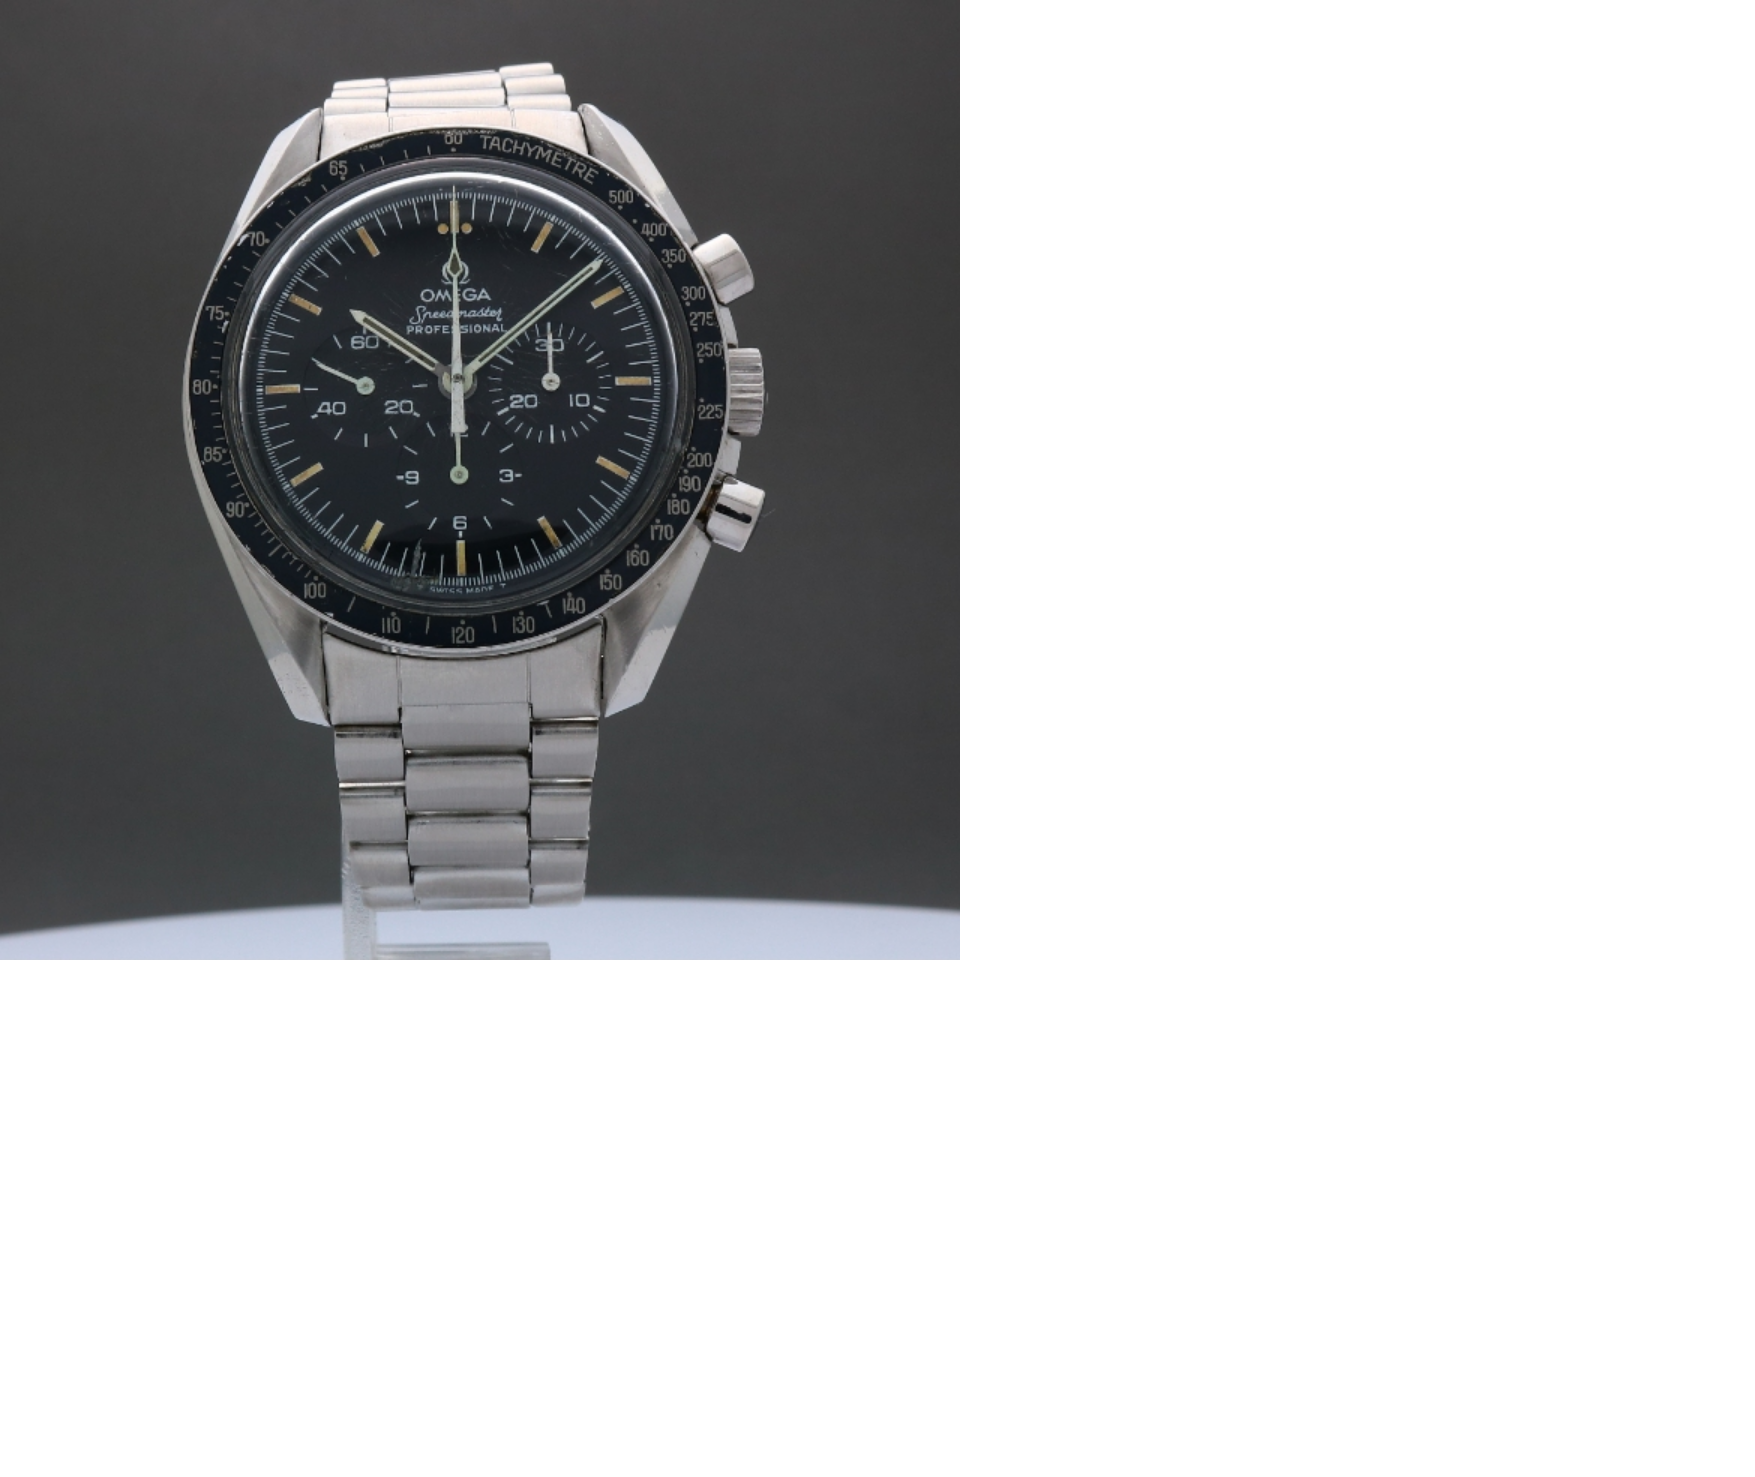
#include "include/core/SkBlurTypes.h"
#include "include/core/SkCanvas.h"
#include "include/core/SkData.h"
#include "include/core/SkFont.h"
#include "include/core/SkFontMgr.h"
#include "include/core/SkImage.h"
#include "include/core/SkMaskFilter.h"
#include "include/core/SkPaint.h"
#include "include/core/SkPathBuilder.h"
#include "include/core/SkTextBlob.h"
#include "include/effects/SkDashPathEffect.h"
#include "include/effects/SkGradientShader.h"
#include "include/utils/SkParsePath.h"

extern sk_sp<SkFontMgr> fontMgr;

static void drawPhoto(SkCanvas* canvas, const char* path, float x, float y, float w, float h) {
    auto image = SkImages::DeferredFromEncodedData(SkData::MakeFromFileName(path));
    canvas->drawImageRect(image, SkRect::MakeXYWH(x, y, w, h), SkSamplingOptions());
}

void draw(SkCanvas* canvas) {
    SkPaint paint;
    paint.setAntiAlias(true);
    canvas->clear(0xFFFFFFFF);
    drawPhoto(canvas, "assets/img1.png", 0, 0, 960, 960);
}
